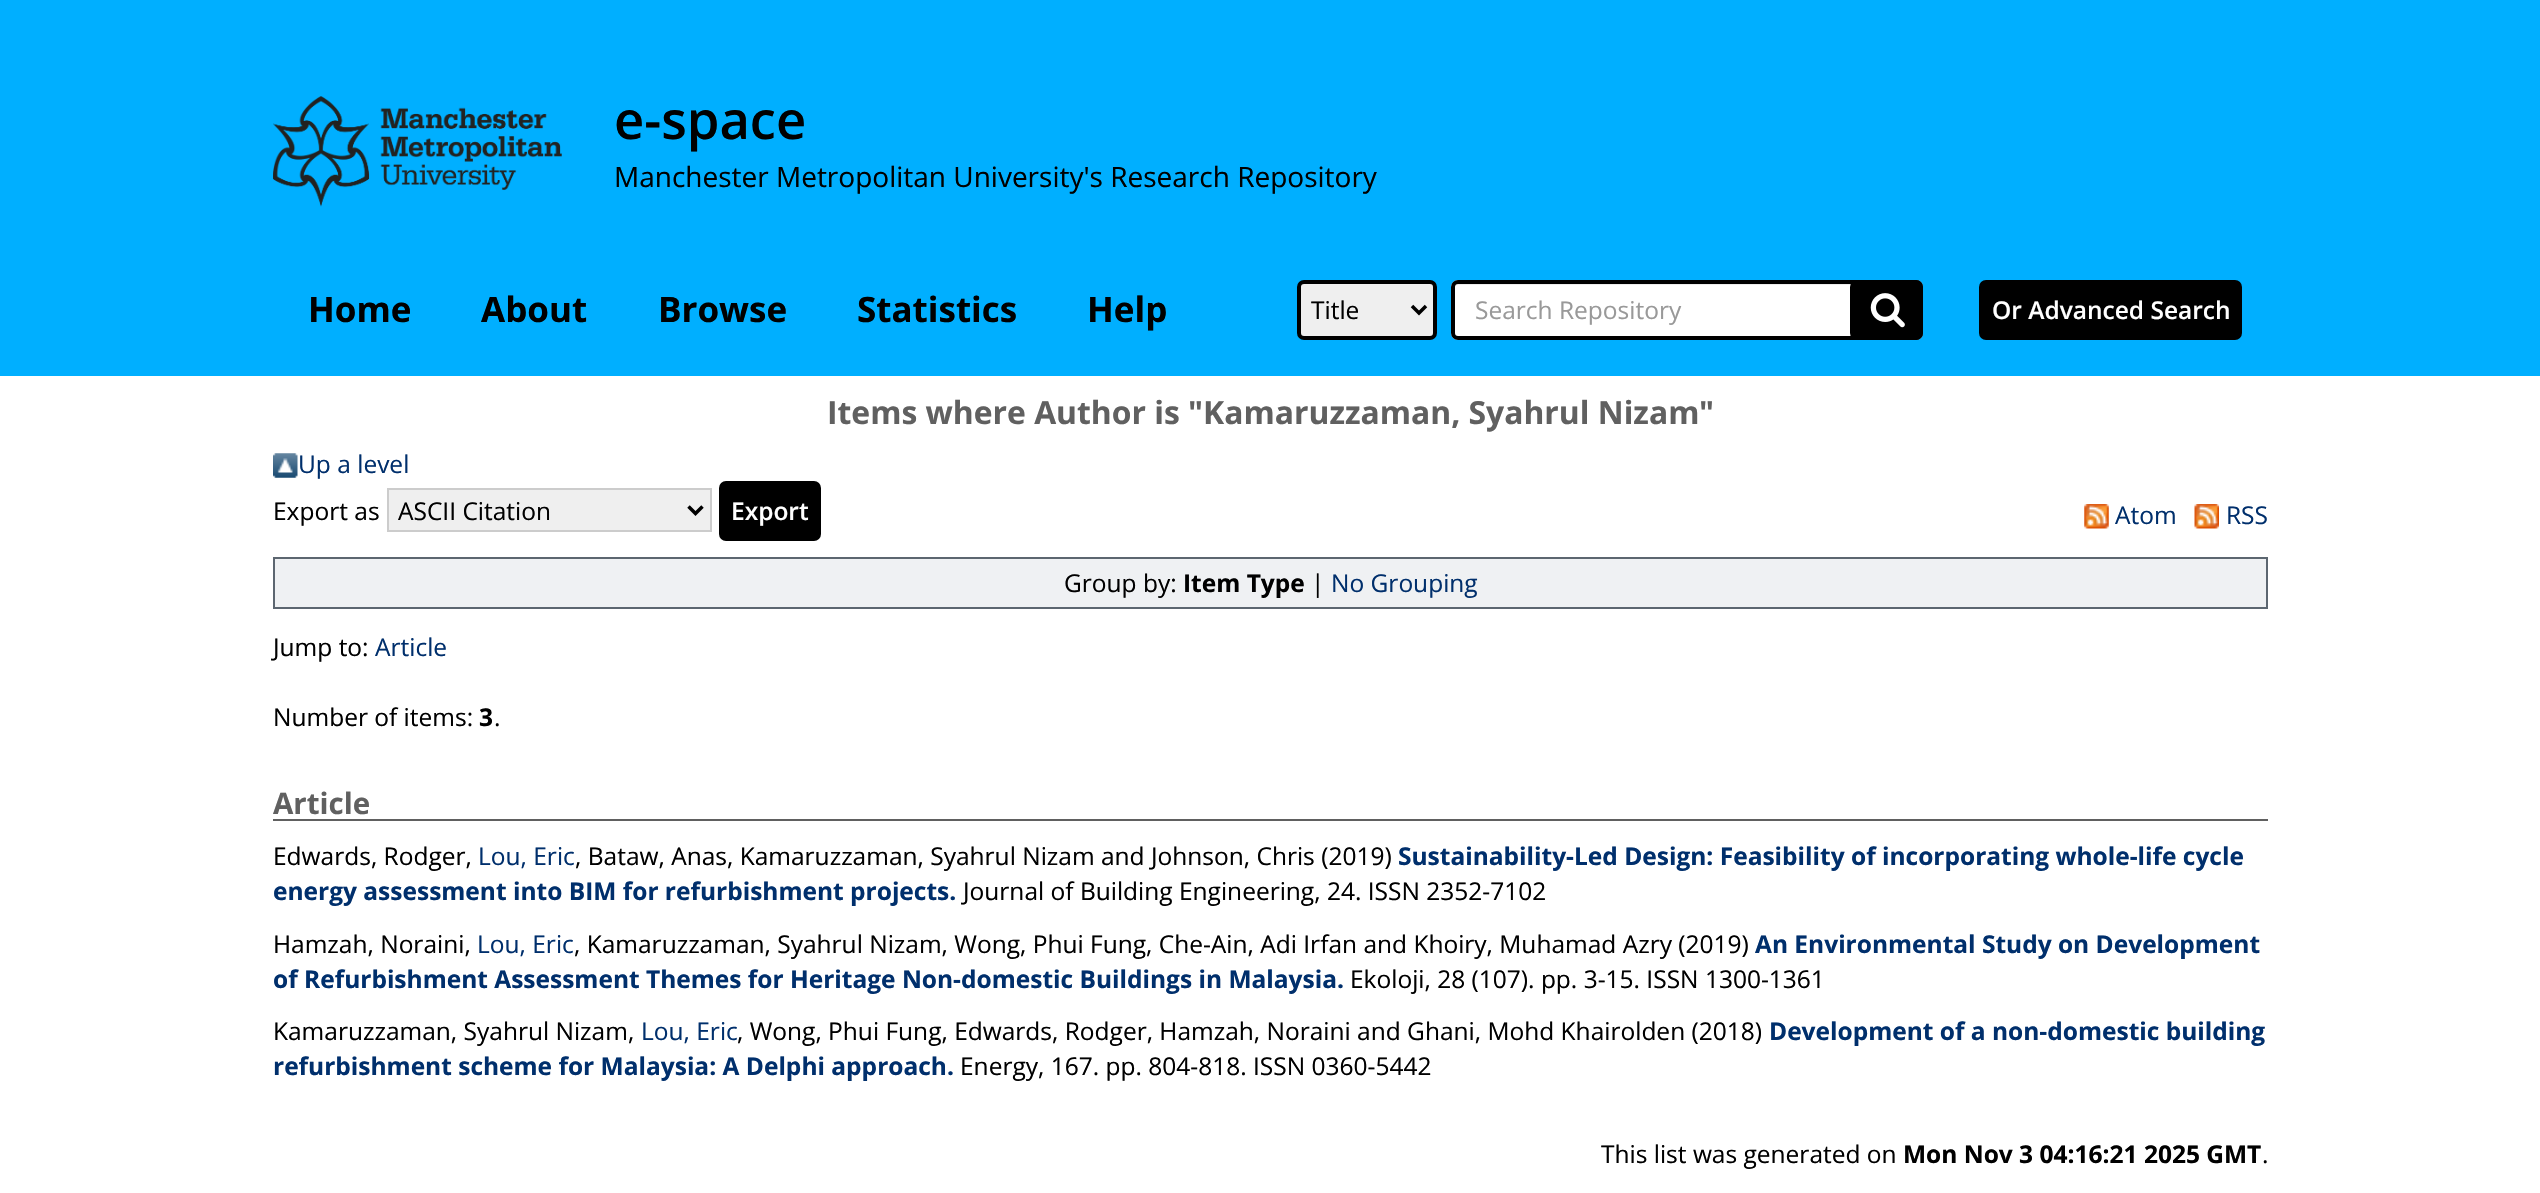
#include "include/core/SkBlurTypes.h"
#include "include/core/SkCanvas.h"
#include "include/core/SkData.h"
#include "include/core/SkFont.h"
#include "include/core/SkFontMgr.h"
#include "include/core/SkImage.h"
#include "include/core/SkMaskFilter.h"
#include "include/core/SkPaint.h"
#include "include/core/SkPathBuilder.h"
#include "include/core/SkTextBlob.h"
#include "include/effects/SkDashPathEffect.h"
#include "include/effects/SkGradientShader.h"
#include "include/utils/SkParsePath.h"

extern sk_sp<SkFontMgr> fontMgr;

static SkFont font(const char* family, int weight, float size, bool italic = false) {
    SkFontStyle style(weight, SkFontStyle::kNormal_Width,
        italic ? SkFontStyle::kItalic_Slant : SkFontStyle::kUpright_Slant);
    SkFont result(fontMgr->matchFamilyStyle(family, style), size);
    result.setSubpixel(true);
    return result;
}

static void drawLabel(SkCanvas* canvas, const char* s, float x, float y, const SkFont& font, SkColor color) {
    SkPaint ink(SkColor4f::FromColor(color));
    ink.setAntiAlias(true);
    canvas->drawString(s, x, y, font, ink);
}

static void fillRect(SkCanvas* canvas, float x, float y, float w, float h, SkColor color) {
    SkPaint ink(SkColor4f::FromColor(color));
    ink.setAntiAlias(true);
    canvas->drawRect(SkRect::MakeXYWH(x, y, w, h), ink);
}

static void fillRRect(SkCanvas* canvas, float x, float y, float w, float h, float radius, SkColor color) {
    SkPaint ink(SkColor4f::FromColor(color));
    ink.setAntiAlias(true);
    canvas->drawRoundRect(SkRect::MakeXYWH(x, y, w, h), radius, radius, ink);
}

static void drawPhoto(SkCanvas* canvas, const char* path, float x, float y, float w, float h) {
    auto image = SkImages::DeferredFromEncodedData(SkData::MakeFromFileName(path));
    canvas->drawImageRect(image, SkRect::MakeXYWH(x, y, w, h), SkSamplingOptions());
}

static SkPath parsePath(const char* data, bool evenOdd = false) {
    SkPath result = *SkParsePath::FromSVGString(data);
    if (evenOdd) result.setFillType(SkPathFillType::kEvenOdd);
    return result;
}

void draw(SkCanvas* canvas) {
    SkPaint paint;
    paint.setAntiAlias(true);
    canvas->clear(0xFFFFFFFF);
    fillRect(canvas, 0, 0, 2540, 376, 0xFF00AFFF);
    drawPhoto(canvas, "assets/img1.png", 273, 96, 289, 111);
    SkFont font1 = font("Open Sans", 600, 52.5f);
    drawLabel(canvas, "e-space", 614, 139, font1, 0xFF000000);
    SkFont font2 = font("Open Sans", 400, 28);
    drawLabel(canvas, "Manchester Metropolitan University's Research Repository", 614, 187, font2, 0xFF000000);
    SkFont font3 = font("Open Sans", 700, 35);
    drawLabel(canvas, "Home", 308, 322, font3, 0xFF000000);
    drawLabel(canvas, "About", 481, 322, font3, 0xFF000000);
    drawLabel(canvas, "Browse", 658, 322, font3, 0xFF000000);
    drawLabel(canvas, "Statistics", 857, 322, font3, 0xFF000000);
    drawLabel(canvas, "Help", 1087, 322, font3, 0xFF000000);
    paint.setColor(0xFFEFEFEF);
    canvas->drawRoundRect(SkRect::MakeXYWH(1299, 282, 136, 56), 5, 5, paint);
    paint.setStroke(true);
    paint.setStrokeWidth(4);
    paint.setColor(0xFF000000);
    canvas->drawRoundRect(SkRect::MakeXYWH(1299, 282, 136, 56), 5, 5, paint);
    paint.setStrokeWidth(3.5f);
    canvas->drawPath(parsePath("M1412 306L1419 313L1426 306"), paint);
    SkFont font4 = font("Open Sans", 400, 24.5f);
    drawLabel(canvas, "Title", 1311, 319, font4, 0xFF000000);
    fillRRect(canvas, 1451, 280, 472, 60, 7, 0xFFFFFFFF);
    paint.setStroke(false);
    paint.setColor(0xFFECECEC);
    canvas->drawPath(parsePath("M1458 285H1916C1918 285 1920 287 1920 289C1920 286 1919 284 1916 284H1458C1455 284 1454 286 1454 289C1454 287 1456 285 1458 285Z"), paint);
    paint.setStroke(true);
    paint.setStrokeWidth(4);
    paint.setColor(0xFF000000);
    canvas->drawRoundRect(SkRect::MakeXYWH(1453, 282, 468, 56), 5, 5, paint);
    drawLabel(canvas, "Search Repository", 1475, 319, font4, 0xFF999999);
    fillRRect(canvas, 1850, 280, 73, 60, 7, 0xFF000000);
    drawPhoto(canvas, "assets/img2.png", 1870, 293, 35, 35);
    fillRRect(canvas, 1979, 280, 263, 60, 7, 0xFF000000);
    SkFont font5 = font("Open Sans", 600, 24.5f);
    drawLabel(canvas, "Or Advanced Search", 1992, 319, font5, 0xFFFFFFFF);
    SkFont font6 = font("Open Sans", 700, 31.85f);
    drawLabel(canvas, "Items where Author is \"Kamaruzzaman, Syahrul Nizam", 827, 424, font6, 0xFF606060);
    drawLabel(canvas, "\"", 1699, 424, font6, 0xFF606060);
    drawPhoto(canvas, "assets/img3.png", 273, 453, 25, 25);
    drawLabel(canvas, "Up a level", 298, 473, font4, 0xFF002F6C);
    drawLabel(canvas, "Export as", 273, 520, font4, 0xFF000000);
    paint.setStroke(false);
    paint.setColor(0xFFEFEFEF);
    canvas->drawRect(SkRect::MakeXYWH(388, 489, 323, 42), paint);
    paint.setStroke(true);
    paint.setStrokeWidth(2);
    paint.setColor(0xFFCCCCCC);
    canvas->drawRect(SkRect::MakeXYWH(388, 489, 323, 42), paint);
    paint.setStrokeWidth(3.5f);
    paint.setColor(0xFF000000);
    canvas->drawPath(parsePath("M688.5 506.5L695.5 513.5L702.5 506.5"), paint);
    drawLabel(canvas, "ASCII Citation", 398, 520, font4, 0xFF000000);
    fillRRect(canvas, 719, 481, 102, 60, 7, 0xFF000000);
    drawLabel(canvas, "Export", 731, 520, font5, 0xFFFFFFFF);
    drawPhoto(canvas, "assets/img4.png", 2084, 504, 25, 25);
    drawLabel(canvas, "Atom", 2115, 524, font4, 0xFF002F6C);
    drawPhoto(canvas, "assets/img5.png", 2194, 504, 25, 25);
    drawLabel(canvas, "RSS", 2226, 524, font4, 0xFF002F6C);
    paint.setStroke(false);
    paint.setColor(0xFFEFF1F3);
    canvas->drawRect(SkRect::MakeXYWH(274, 558, 1993, 50), paint);
    paint.setStroke(true);
    paint.setStrokeWidth(2);
    paint.setColor(0xFF5C6670);
    canvas->drawRect(SkRect::MakeXYWH(274, 558, 1993, 50), paint);
    drawLabel(canvas, "Group by:", 1064, 592, font4, 0xFF000000);
    SkFont font7 = font("Open Sans", 700, 24.5f);
    drawLabel(canvas, "Item Type", 1183, 592, font7, 0xFF000000);
    drawLabel(canvas, "|", 1311, 592, font4, 0xFF000000);
    drawLabel(canvas, "No Grouping", 1331, 592, font4, 0xFF002F6C);
    drawLabel(canvas, "Jump to:", 273, 656, font4, 0xFF000000);
    drawLabel(canvas, "Article", 375, 656, font4, 0xFF002F6C);
    drawLabel(canvas, "Number of items:", 273, 726, font4, 0xFF000000);
    drawLabel(canvas, "3", 479, 726, font7, 0xFF000000);
    drawLabel(canvas, ".", 494, 726, font4, 0xFF000000);
    fillRect(canvas, 273, 819, 1995, 2, 0xFF606060);
    SkFont font8 = font("Open Sans", 700, 29.5f);
    drawLabel(canvas, "Article", 273, 814, font8, 0xFF606060);
    drawLabel(canvas, "Edwards, Rodger,", 273, 865, font4, 0xFF000000);
    drawLabel(canvas, "Lou, Eric", 478, 865, font4, 0xFF002F6C);
    drawLabel(canvas, ", Bataw, Anas, Kamaruzzaman, Syahrul Nizam and Johnson, Chris (2019)", 575, 865, font4, 0xFF000000);
    drawLabel(canvas, "Sustainability-Led Design: Feasibility of incorporating whole-life cycle", 1398, 865, font7, 0xFF002F6C);
    drawLabel(canvas, "energy assessment into BIM for refurbishment projects.", 273, 900, font7, 0xFF002F6C);
    drawLabel(canvas, "Journal of Building Engineering, 24. ISSN 2352-7102", 963, 900, font4, 0xFF000000);
    drawLabel(canvas, "Hamzah, Noraini,", 273, 953, font4, 0xFF000000);
    drawLabel(canvas, "Lou, Eric", 477, 953, font4, 0xFF002F6C);
    drawLabel(canvas, ", Kamaruzzaman, Syahrul Nizam, Wong, Phui Fung, Che-Ain, Adi Irfan and Khoiry, Muhamad Azry (2019)", 574, 953, font4, 0xFF000000);
    drawLabel(canvas, "An Environmental Study on Development", 1755, 953, font7, 0xFF002F6C);
    drawLabel(canvas, "of Refurbishment Assessment Themes for Heritage Non-domestic Buildings in Malaysia.", 273, 988, font7, 0xFF002F6C);
    drawLabel(canvas, "Ekoloji, 28 (107). pp. 3-15. ISSN 1300-1361", 1350, 988, font4, 0xFF000000);
    drawLabel(canvas, "Kamaruzzaman, Syahrul Nizam,", 273, 1040, font4, 0xFF000000);
    drawLabel(canvas, "Lou, Eric", 641, 1040, font4, 0xFF002F6C);
    drawLabel(canvas, ", Wong, Phui Fung, Edwards, Rodger, Hamzah, Noraini and Ghani, Mohd Khairolden (2018)", 737, 1040, font4, 0xFF000000);
    drawLabel(canvas, "Development of a non-domestic building", 1769, 1040, font7, 0xFF002F6C);
    drawLabel(canvas, "refurbishment scheme for Malaysia: A Delphi approach.", 273, 1075, font7, 0xFF002F6C);
    drawLabel(canvas, "Energy, 167. pp. 804-818. ISSN 0360-5442", 960, 1075, font4, 0xFF000000);
    drawLabel(canvas, "This list was generated on", 1601, 1163, font4, 0xFF000000);
    drawLabel(canvas, "Mon Nov 3 04:16:21 2025 GMT", 1903, 1163, font7, 0xFF000000);
    drawLabel(canvas, ".", 2262, 1163, font4, 0xFF000000);
}
